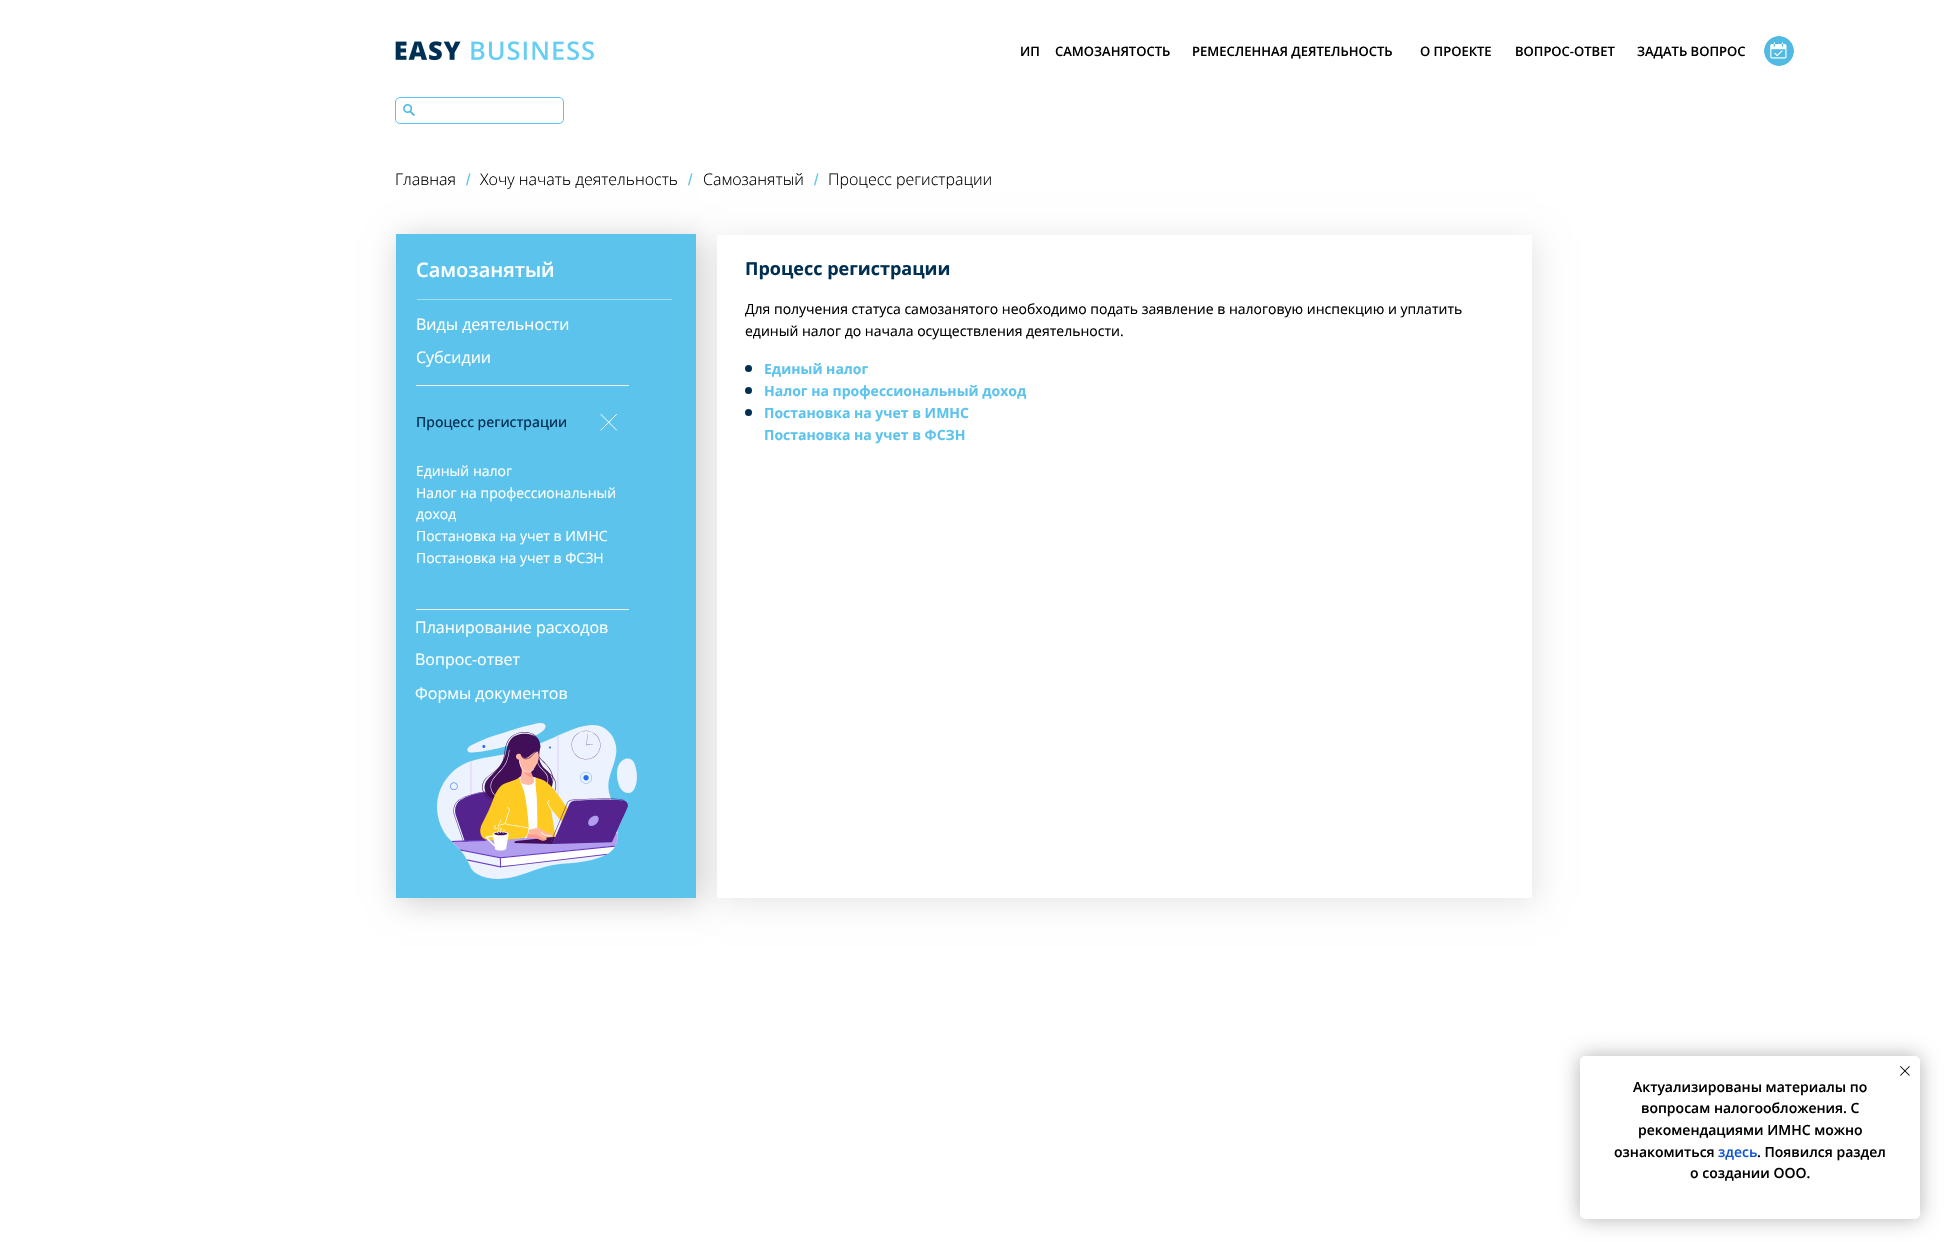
#include "include/core/SkBlurTypes.h"
#include "include/core/SkCanvas.h"
#include "include/core/SkData.h"
#include "include/core/SkFont.h"
#include "include/core/SkFontMgr.h"
#include "include/core/SkImage.h"
#include "include/core/SkMaskFilter.h"
#include "include/core/SkPaint.h"
#include "include/core/SkPathBuilder.h"
#include "include/core/SkTextBlob.h"
#include "include/effects/SkDashPathEffect.h"
#include "include/effects/SkGradientShader.h"
#include "include/utils/SkParsePath.h"

extern sk_sp<SkFontMgr> fontMgr;

static SkFont font(const char* family, int weight, float size, bool italic = false) {
    SkFontStyle style(weight, SkFontStyle::kNormal_Width,
        italic ? SkFontStyle::kItalic_Slant : SkFontStyle::kUpright_Slant);
    SkFont result(fontMgr->matchFamilyStyle(family, style), size);
    result.setSubpixel(true);
    return result;
}

static void drawLabel(SkCanvas* canvas, const char* s, float x, float y, const SkFont& font, SkColor color) {
    SkPaint ink(SkColor4f::FromColor(color));
    ink.setAntiAlias(true);
    canvas->drawString(s, x, y, font, ink);
}

static void fillRect(SkCanvas* canvas, float x, float y, float w, float h, SkColor color) {
    SkPaint ink(SkColor4f::FromColor(color));
    ink.setAntiAlias(true);
    canvas->drawRect(SkRect::MakeXYWH(x, y, w, h), ink);
}

static void fillRRect(SkCanvas* canvas, float x, float y, float w, float h, float radius, SkColor color) {
    SkPaint ink(SkColor4f::FromColor(color));
    ink.setAntiAlias(true);
    canvas->drawRoundRect(SkRect::MakeXYWH(x, y, w, h), radius, radius, ink);
}

static void drawPhoto(SkCanvas* canvas, const char* path, float x, float y, float w, float h) {
    auto image = SkImages::DeferredFromEncodedData(SkData::MakeFromFileName(path));
    canvas->drawImageRect(image, SkRect::MakeXYWH(x, y, w, h), SkSamplingOptions());
}

static SkPath parsePath(const char* data, bool evenOdd = false) {
    SkPath result = *SkParsePath::FromSVGString(data);
    if (evenOdd) result.setFillType(SkPathFillType::kEvenOdd);
    return result;
}

void draw(SkCanvas* canvas) {
    SkPaint paint;
    paint.setAntiAlias(true);
    canvas->clear(0xFFFFFFFF);
    SkFont font1 = font("Open Sans", 300, 16);
    drawLabel(canvas, "Главная", 395, 185, font1, 0xFF000000);
    SkFont font2 = font("Liberation Sans", 400, 16);
    drawLabel(canvas, "/", 466, 185, font2, 0xFF5CC4EC);
    drawLabel(canvas, "Хочу начать деятельность", 480, 185, font1, 0xFF000000);
    drawLabel(canvas, "/", 688, 185, font2, 0xFF5CC4EC);
    drawLabel(canvas, "Самозанятый", 703, 185, font1, 0xFF000000);
    drawLabel(canvas, "/", 814, 185, font2, 0xFF5CC4EC);
    drawLabel(canvas, "Процесс регистрации", 828, 185, font1, 0xFF000000);
    drawPhoto(canvas, "assets/img1.png", 395, 41, 199, 20);
    SkFont font3 = font("Open Sans", 600, 13);
    drawLabel(canvas, "ИП", 1020, 56, font3, 0xFF000000);
    drawLabel(canvas, "САМОЗАНЯТОСТЬ", 1055, 56, font3, 0xFF000000);
    drawLabel(canvas, "РЕМЕСЛЕННАЯ ДЕЯТЕЛЬНОСТЬ", 1192, 56, font3, 0xFF000000);
    drawLabel(canvas, "О ПРОЕКТЕ", 1420, 56, font3, 0xFF000000);
    drawLabel(canvas, "ВОПРОС-ОТВЕТ", 1515, 56, font3, 0xFF000000);
    drawLabel(canvas, "ЗАДАТЬ ВОПРОС", 1637, 56, font3, 0xFF000000);
    drawPhoto(canvas, "assets/img2.png", 1764, 36, 30, 30);
    paint.setStroke(true);
    paint.setStrokeWidth(1);
    paint.setColor(0xFF5CC4EC);
    canvas->drawRoundRect(SkRect::MakeXYWH(395.5f, 97.5f, 168, 26), 4.5f, 4.5f, paint);
    drawPhoto(canvas, "assets/img3.png", 403, 104, 12, 12);
    paint.setStroke(false);
    paint.setColor(0x4D000000);
    paint.setMaskFilter(SkMaskFilter::MakeBlur(kNormal_SkBlurStyle, 10));
    canvas->drawRoundRect(SkRect::MakeXYWH(1580, 1056, 340, 163), 5, 5, paint);
    paint.setMaskFilter(nullptr);
    fillRRect(canvas, 1580, 1056, 340, 163, 5, 0xFFFFFFFF);
    drawPhoto(canvas, "assets/img4.png", 1900, 1066, 10, 10);
    SkFont font4 = font("Open Sans", 600, 14);
    drawLabel(canvas, "Актуализированы материалы по", 1633, 1092, font4, 0xFF000000);
    drawLabel(canvas, "вопросам налогообложения. С", 1641, 1113, font4, 0xFF000000);
    drawLabel(canvas, "рекомендациями ИМНС можно", 1638, 1135, font4, 0xFF000000);
    drawLabel(canvas, "ознакомиться", 1614, 1157, font4, 0xFF000000);
    drawLabel(canvas, "здесь", 1718, 1157, font4, 0xFF1155CC);
    drawLabel(canvas, ". Появился раздел", 1757, 1157, font4, 0xFF000000);
    drawLabel(canvas, "о создании ООО.", 1690, 1178, font4, 0xFF000000);
    paint.setColor(0x33000000);
    paint.setMaskFilter(SkMaskFilter::MakeBlur(kNormal_SkBlurStyle, 15));
    canvas->drawRect(SkRect::MakeXYWH(400, 238, 300, 664), paint);
    paint.setMaskFilter(nullptr);
    fillRect(canvas, 396, 234, 300, 664, 0xFF5CC4EC);
    paint.setColor(0x1A000000);
    paint.setMaskFilter(SkMaskFilter::MakeBlur(kNormal_SkBlurStyle, 15));
    canvas->drawRect(SkRect::MakeXYWH(721, 239, 815, 663), paint);
    paint.setMaskFilter(nullptr);
    fillRect(canvas, 717, 235, 815, 663, 0xFFFFFFFF);
    SkFont font5 = font("Open Sans", 600, 20);
    drawLabel(canvas, "Самозанятый", 416, 277, font5, 0xFFFFFFFF);
    SkFont font6 = font("Open Sans", 700, 18);
    drawLabel(canvas, "Процесс регистрации", 745, 275, font6, 0xFF002F54);
    fillRect(canvas, 417, 299, 255, 1, 0xFFA5DFF5);
    SkFont font7 = font("Open Sans", 400, 16);
    drawLabel(canvas, "Виды деятельности", 416, 330, font7, 0xFFFFFFFF);
    SkFont font8 = font("Open Sans", 400, 14);
    drawLabel(canvas, "Для получения статуса самозанятого необходимо подать заявление в налоговую инспекцию и уплатить", 745, 314, font8, 0xFF000000);
    drawLabel(canvas, "единый налог до начала осуществления деятельности.", 745, 336, font8, 0xFF000000);
    drawLabel(canvas, "Субсидии", 416, 363, font7, 0xFFFFFFFF);
    paint.setColor(0xFF002F54);
    canvas->drawCircle(748.5f, 368.5f, 3.5f, paint);
    SkFont font9 = font("Open Sans", 700, 14);
    drawLabel(canvas, "Единый налог", 764, 374, font9, 0xFF5CC4EC);
    drawLabel(canvas, "Налог на профессиональный доход", 764, 396, font9, 0xFF5CC4EC);
    drawLabel(canvas, "Постановка на учет в ИМНС", 764, 418, font9, 0xFF5CC4EC);
    drawLabel(canvas, "Постановка на учет в ФСЗН", 764, 440, font9, 0xFF5CC4EC);
    canvas->drawCircle(748.5f, 390.5f, 3.5f, paint);
    canvas->drawCircle(748.5f, 412.5f, 3.5f, paint);
    fillRect(canvas, 416, 385, 213, 1, 0xFFEEEEEE);
    SkFont font10 = font("Open Sans", 500, 14);
    drawLabel(canvas, "Процесс регистрации", 416, 427, font10, 0xFF002F54);
    paint.setStroke(true);
    paint.setStrokeCap(SkPaint::kSquare_Cap);
    paint.setColor(0xFFFFFFFF);
    canvas->drawPath(parsePath("M601 430L616.5 414.5M601 414.5L616.5 430"), paint);
    drawLabel(canvas, "Единый налог", 416, 476, font8, 0xFFFFFFFF);
    drawLabel(canvas, "Налог на профессиональный", 416, 498, font8, 0xFFFFFFFF);
    drawLabel(canvas, "доход", 416, 519, font8, 0xFFFFFFFF);
    drawLabel(canvas, "Постановка на учет в ИМНС", 416, 541, font8, 0xFFFFFFFF);
    drawLabel(canvas, "Постановка на учет в ФСЗН", 416, 563, font8, 0xFFFFFFFF);
    fillRect(canvas, 416, 609, 213, 1, 0xFFEEEEEE);
    drawLabel(canvas, "Планирование расходов", 415, 633, font7, 0xFFFFFFFF);
    drawLabel(canvas, "Вопрос-ответ", 415, 665, font7, 0xFFFFFFFF);
    drawLabel(canvas, "Формы документов", 415, 699, font7, 0xFFFFFFFF);
    drawPhoto(canvas, "assets/img5.png", 437, 723, 200, 156);
}
